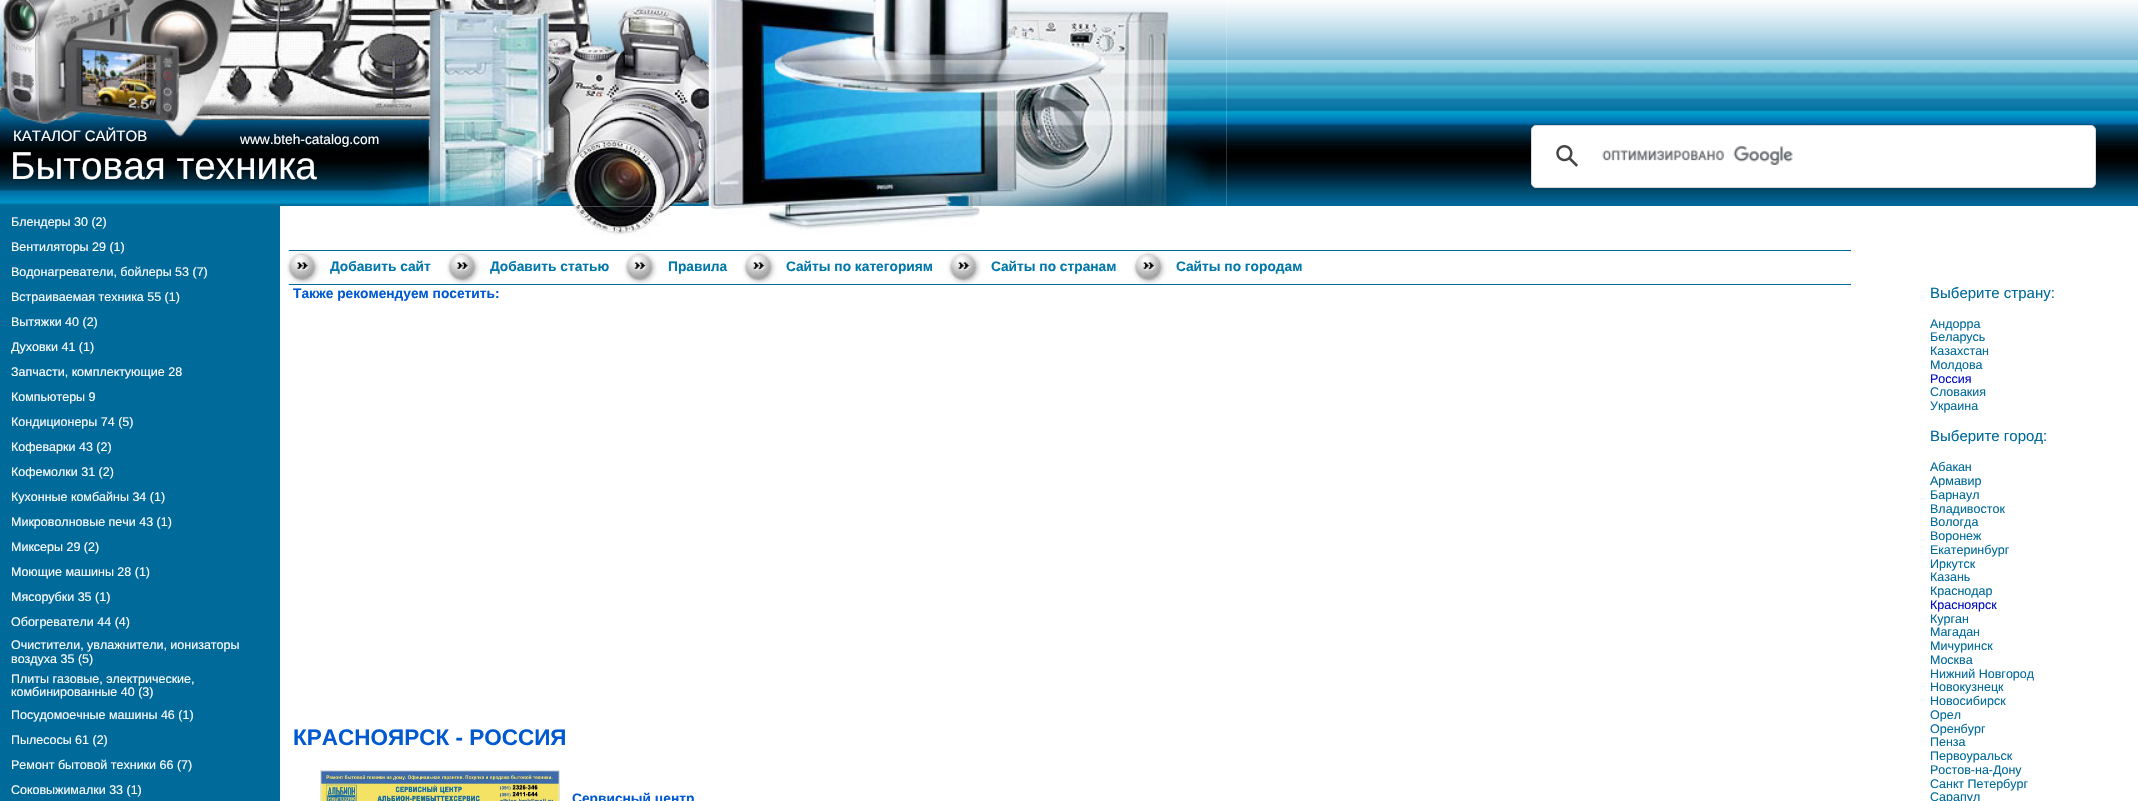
#include "include/core/SkBlurTypes.h"
#include "include/core/SkCanvas.h"
#include "include/core/SkData.h"
#include "include/core/SkFont.h"
#include "include/core/SkFontMgr.h"
#include "include/core/SkImage.h"
#include "include/core/SkMaskFilter.h"
#include "include/core/SkPaint.h"
#include "include/core/SkPathBuilder.h"
#include "include/core/SkTextBlob.h"
#include "include/effects/SkDashPathEffect.h"
#include "include/effects/SkGradientShader.h"
#include "include/utils/SkParsePath.h"

extern sk_sp<SkFontMgr> fontMgr;

static SkFont font(const char* family, int weight, float size, bool italic = false) {
    SkFontStyle style(weight, SkFontStyle::kNormal_Width,
        italic ? SkFontStyle::kItalic_Slant : SkFontStyle::kUpright_Slant);
    SkFont result(fontMgr->matchFamilyStyle(family, style), size);
    result.setSubpixel(true);
    return result;
}

static void drawLabel(SkCanvas* canvas, const char* s, float x, float y, const SkFont& font, SkColor color) {
    SkPaint ink(SkColor4f::FromColor(color));
    ink.setAntiAlias(true);
    canvas->drawString(s, x, y, font, ink);
}

static void fillRect(SkCanvas* canvas, float x, float y, float w, float h, SkColor color) {
    SkPaint ink(SkColor4f::FromColor(color));
    ink.setAntiAlias(true);
    canvas->drawRect(SkRect::MakeXYWH(x, y, w, h), ink);
}

static void drawPhoto(SkCanvas* canvas, const char* path, float x, float y, float w, float h) {
    auto image = SkImages::DeferredFromEncodedData(SkData::MakeFromFileName(path));
    canvas->drawImageRect(image, SkRect::MakeXYWH(x, y, w, h), SkSamplingOptions());
}

void draw(SkCanvas* canvas) {
    SkPaint paint;
    paint.setAntiAlias(true);
    canvas->clear(0xFFFFFFFF);
    drawPhoto(canvas, "assets/img1.png", 0, 0, 1227, 206);
    SkFont font1 = font("Liberation Sans", 400, 15);
    drawLabel(canvas, "КАТАЛОГ САЙТОВ", 13, 141, font1, 0xFFFFFFFF);
    SkFont font2 = font("Liberation Sans", 400, 13.75f);
    drawLabel(canvas, "www.bteh-catalog.com", 240, 144, font2, 0xFFFFFFFF);
    SkFont font3 = font("Liberation Sans", 400, 38.75f);
    drawLabel(canvas, "Бытовая техника", 10, 179, font3, 0xFFFFFFFF);
    drawPhoto(canvas, "assets/img2.png", 1226, 0, 912, 206);
    paint.setColor(0xFFFFFFFF);
    canvas->drawRoundRect(SkRect::MakeXYWH(1531.5f, 125.5f, 564, 62), 4.5f, 4.5f, paint);
    paint.setStroke(true);
    paint.setStrokeWidth(1);
    paint.setColor(0xFFD9D9D9);
    canvas->drawRoundRect(SkRect::MakeXYWH(1531.5f, 125.5f, 564, 62), 4.5f, 4.5f, paint);
    drawPhoto(canvas, "assets/img3.png", 1556, 145, 22, 22);
    drawPhoto(canvas, "assets/img4.png", 1602, 146, 191, 19);
    fillRect(canvas, 0, 206, 280, 595, 0xFF006A9B);
    SkFont font4 = font("Liberation Sans", 400, 12.5f);
    drawLabel(canvas, "Блендеры 30 (2)", 11, 226, font4, 0xFFFFFFFF);
    drawLabel(canvas, "Вентиляторы 29 (1)", 11, 251, font4, 0xFFFFFFFF);
    drawLabel(canvas, "Водонагреватели, бойлеры 53 (7)", 11, 276, font4, 0xFFFFFFFF);
    drawLabel(canvas, "Встраиваемая техника 55 (1)", 11, 301, font4, 0xFFFFFFFF);
    drawLabel(canvas, "Вытяжки 40 (2)", 11, 326, font4, 0xFFFFFFFF);
    drawLabel(canvas, "Духовки 41 (1)", 11, 351, font4, 0xFFFFFFFF);
    drawLabel(canvas, "Запчасти, комплектующие 28", 11, 376, font4, 0xFFFFFFFF);
    drawLabel(canvas, "Компьютеры 9", 11, 401, font4, 0xFFFFFFFF);
    drawLabel(canvas, "Кондиционеры 74 (5)", 11, 426, font4, 0xFFFFFFFF);
    drawLabel(canvas, "Кофеварки 43 (2)", 11, 451, font4, 0xFFFFFFFF);
    drawLabel(canvas, "Кофемолки 31 (2)", 11, 476, font4, 0xFFFFFFFF);
    drawLabel(canvas, "Кухонные комбайны 34 (1)", 11, 501, font4, 0xFFFFFFFF);
    drawLabel(canvas, "Микроволновые печи 43 (1)", 11, 526, font4, 0xFFFFFFFF);
    drawLabel(canvas, "Миксеры 29 (2)", 11, 551, font4, 0xFFFFFFFF);
    drawLabel(canvas, "Моющие машины 28 (1)", 11, 576, font4, 0xFFFFFFFF);
    drawLabel(canvas, "Мясорубки 35 (1)", 11, 601, font4, 0xFFFFFFFF);
    drawLabel(canvas, "Обогреватели 44 (4)", 11, 626, font4, 0xFFFFFFFF);
    drawLabel(canvas, "Очистители, увлажнители, ионизаторы", 11, 649, font4, 0xFFFFFFFF);
    drawLabel(canvas, "воздуха 35 (5)", 11, 663, font4, 0xFFFFFFFF);
    drawLabel(canvas, "Плиты газовые, электрические,", 11, 683, font4, 0xFFFFFFFF);
    drawLabel(canvas, "комбинированные 40 (3)", 11, 696, font4, 0xFFFFFFFF);
    drawLabel(canvas, "Посудомоечные машины 46 (1)", 11, 719, font4, 0xFFFFFFFF);
    drawLabel(canvas, "Пылесосы 61 (2)", 11, 744, font4, 0xFFFFFFFF);
    drawLabel(canvas, "Ремонт бытовой техники 66 (7)", 11, 769, font4, 0xFFFFFFFF);
    drawLabel(canvas, "Соковыжималки 33 (1)", 11, 794, font4, 0xFFFFFFFF);
    drawPhoto(canvas, "assets/img5.png", 572, 206, 408, 30);
    fillRect(canvas, 280, 250, 1571, 1, 0xFF006A9B);
    drawPhoto(canvas, "assets/img6.png", 280, 250, 9, 1);
    drawPhoto(canvas, "assets/img7.png", 286, 251, 35, 33);
    SkFont font5 = font("Liberation Sans", 700, 13.75f);
    drawLabel(canvas, "Добавить сайт", 330, 271, font5, 0xFF0178A9);
    drawPhoto(canvas, "assets/img8.png", 446, 251, 35, 33);
    drawLabel(canvas, "Добавить статью", 490, 271, font5, 0xFF0178A9);
    drawPhoto(canvas, "assets/img9.png", 624, 251, 34, 33);
    drawLabel(canvas, "Правила", 668, 271, font5, 0xFF0178A9);
    drawPhoto(canvas, "assets/img10.png", 742, 251, 35, 33);
    drawLabel(canvas, "Сайты по категориям", 786, 271, font5, 0xFF0178A9);
    drawPhoto(canvas, "assets/img11.png", 947, 251, 35, 33);
    drawLabel(canvas, "Сайты по странам", 991, 271, font5, 0xFF0178A9);
    drawPhoto(canvas, "assets/img11.png", 1132, 251, 35, 33);
    drawLabel(canvas, "Сайты по городам", 1176, 271, font5, 0xFF0178A9);
    fillRect(canvas, 280, 284, 1571, 1, 0xFF006A9B);
    drawPhoto(canvas, "assets/img6.png", 280, 284, 9, 1);
    drawLabel(canvas, "Также рекомендуем посетить:", 293, 298, font5, 0xFF0059D1);
    SkFont font6 = font("Liberation Sans", 700, 22.5f);
    drawLabel(canvas, "КРАСНОЯРСК - РОССИЯ", 293, 745, font6, 0xFF0059D1);
    paint.setColor(0xFFE3E3E3);
    canvas->drawRect(SkRect::MakeXYWH(320.5f, 770.5f, 239, 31), paint);
    drawPhoto(canvas, "assets/img12.png", 321, 771, 238, 30);
    drawLabel(canvas, "Сервисный центр", 572, 803, font5, 0xFF0059D1);
    drawLabel(canvas, "Выберите страну:", 1930, 298, font1, 0xFF006A9B);
    drawLabel(canvas, "Андорра", 1930, 328, font4, 0xFF006A9B);
    drawLabel(canvas, "Беларусь", 1930, 341, font4, 0xFF006A9B);
    drawLabel(canvas, "Казахстан", 1930, 355, font4, 0xFF006A9B);
    drawLabel(canvas, "Молдова", 1930, 369, font4, 0xFF006A9B);
    drawLabel(canvas, "Россия", 1930, 383, font4, 0xFF000EC1);
    drawLabel(canvas, "Словакия", 1930, 396, font4, 0xFF006A9B);
    drawLabel(canvas, "Украина", 1930, 410, font4, 0xFF006A9B);
    drawLabel(canvas, "Выберите город:", 1930, 441, font1, 0xFF006A9B);
    drawLabel(canvas, "Абакан", 1930, 471, font4, 0xFF006A9B);
    drawLabel(canvas, "Армавир", 1930, 485, font4, 0xFF006A9B);
    drawLabel(canvas, "Барнаул", 1930, 499, font4, 0xFF006A9B);
    drawLabel(canvas, "Владивосток", 1930, 513, font4, 0xFF006A9B);
    drawLabel(canvas, "Вологда", 1930, 526, font4, 0xFF006A9B);
    drawLabel(canvas, "Воронеж", 1930, 540, font4, 0xFF006A9B);
    drawLabel(canvas, "Екатеринбург", 1930, 554, font4, 0xFF006A9B);
    drawLabel(canvas, "Иркутск", 1930, 568, font4, 0xFF006A9B);
    drawLabel(canvas, "Казань", 1930, 581, font4, 0xFF006A9B);
    drawLabel(canvas, "Краснодар", 1930, 595, font4, 0xFF006A9B);
    drawLabel(canvas, "Красноярск", 1930, 609, font4, 0xFF000EC1);
    drawLabel(canvas, "Курган", 1930, 623, font4, 0xFF006A9B);
    drawLabel(canvas, "Магадан", 1930, 636, font4, 0xFF006A9B);
    drawLabel(canvas, "Мичуринск", 1930, 650, font4, 0xFF006A9B);
    drawLabel(canvas, "Москва", 1930, 664, font4, 0xFF006A9B);
    drawLabel(canvas, "Нижний Новгород", 1930, 678, font4, 0xFF006A9B);
    drawLabel(canvas, "Новокузнецк", 1930, 691, font4, 0xFF006A9B);
    drawLabel(canvas, "Новосибирск", 1930, 705, font4, 0xFF006A9B);
    drawLabel(canvas, "Орел", 1930, 719, font4, 0xFF006A9B);
    drawLabel(canvas, "Оренбург", 1930, 733, font4, 0xFF006A9B);
    drawLabel(canvas, "Пенза", 1930, 746, font4, 0xFF006A9B);
    drawLabel(canvas, "Первоуральск", 1930, 760, font4, 0xFF006A9B);
    drawLabel(canvas, "Ростов-на-Дону", 1930, 774, font4, 0xFF006A9B);
    drawLabel(canvas, "Санкт Петербург", 1930, 788, font4, 0xFF006A9B);
    drawLabel(canvas, "Сарапул", 1930, 801, font4, 0xFF006A9B);
}
